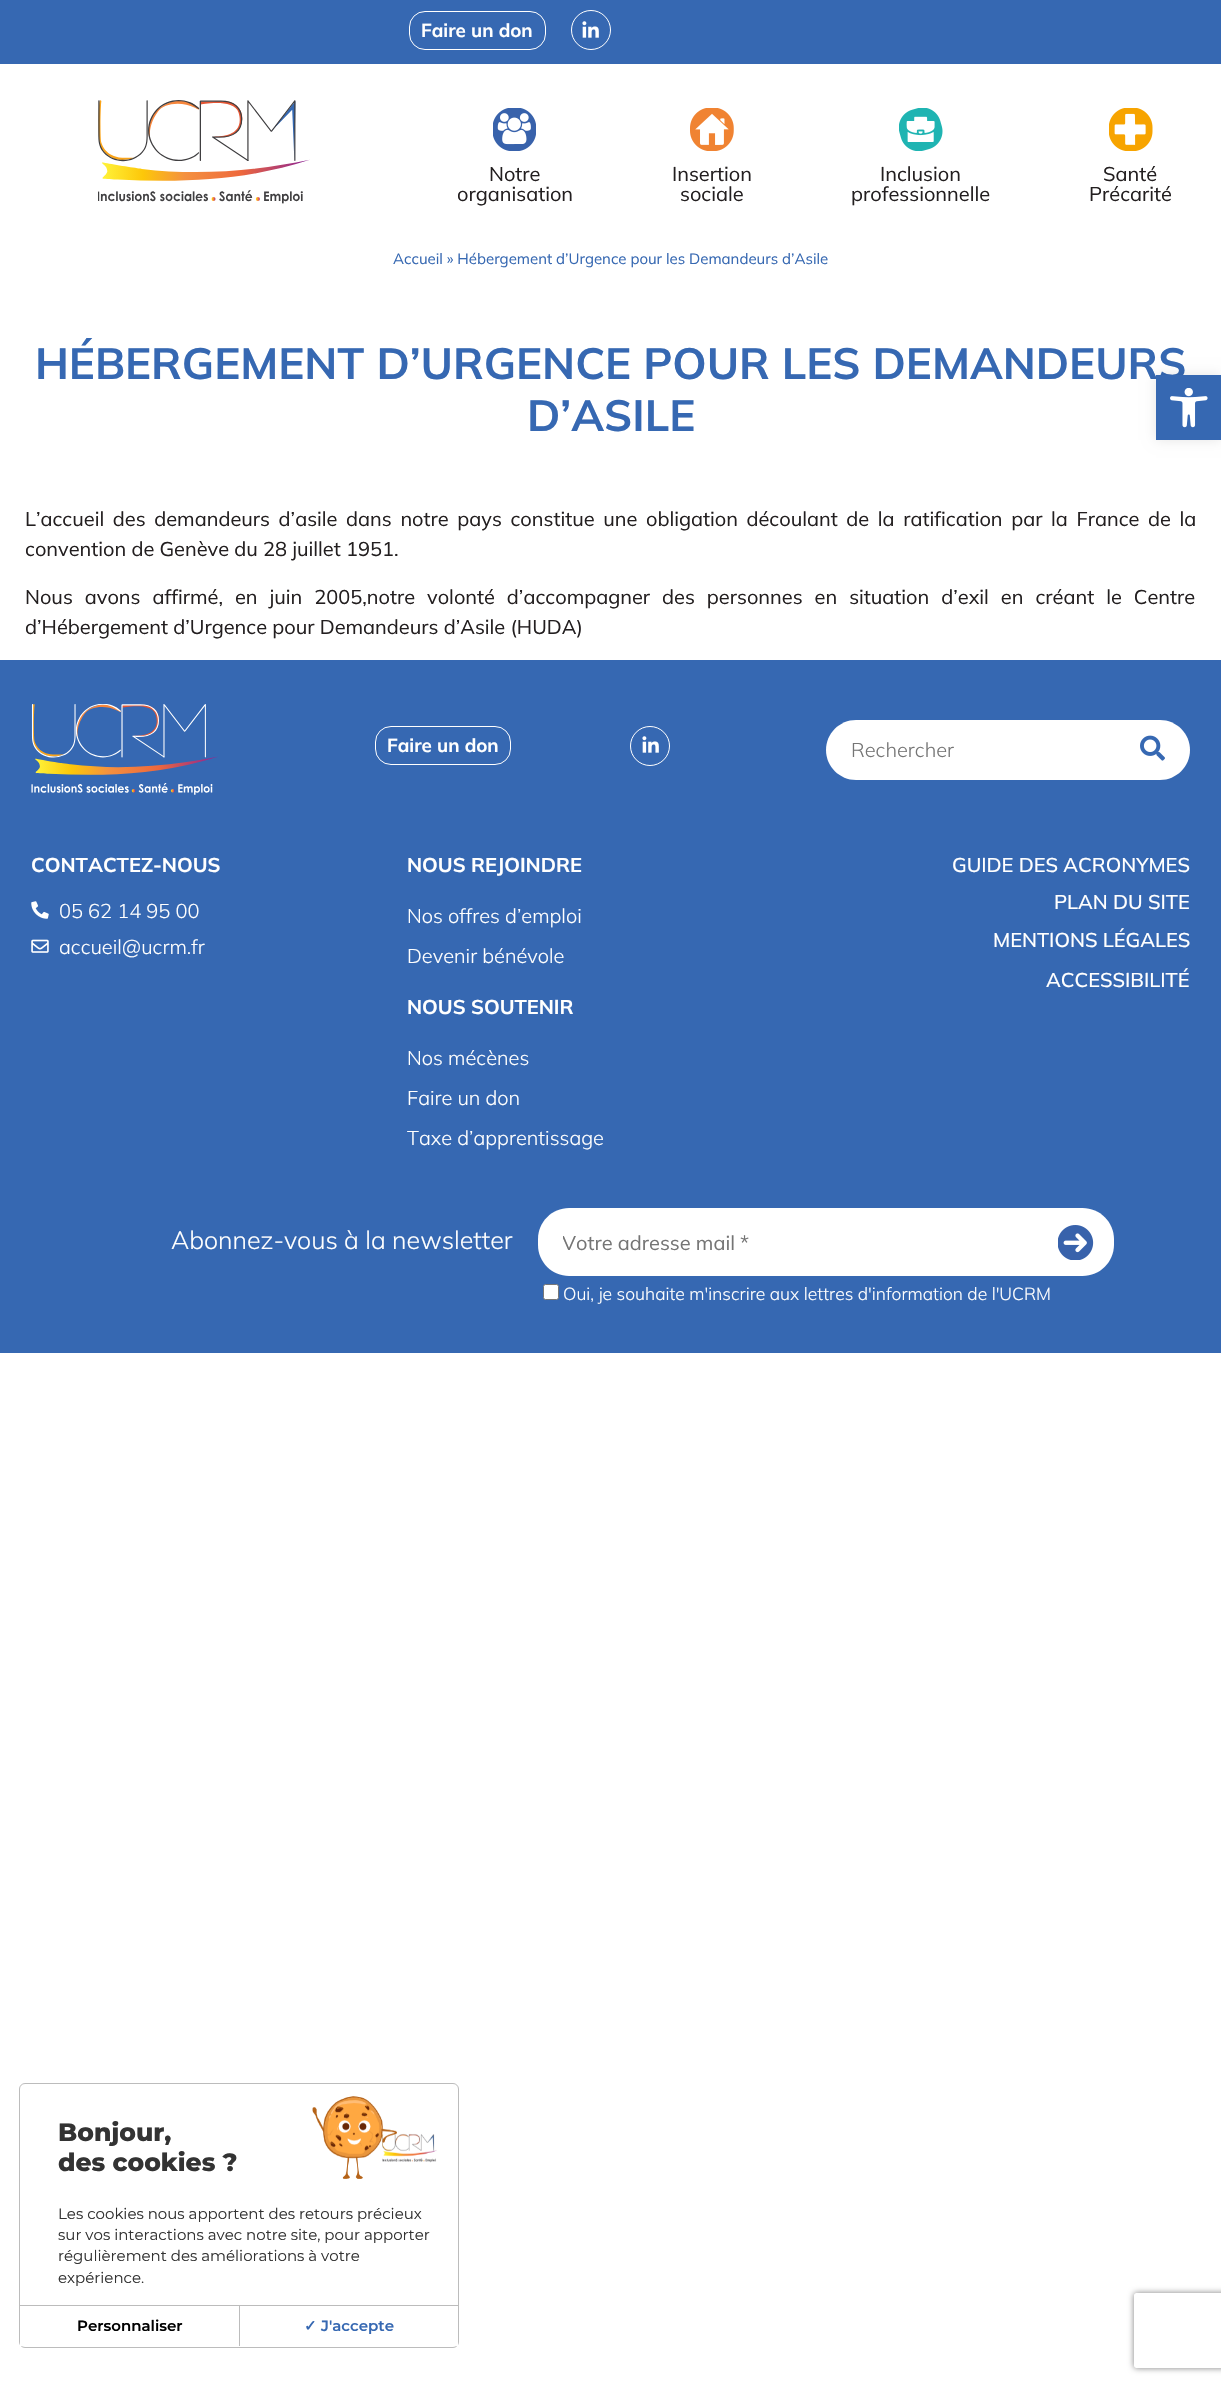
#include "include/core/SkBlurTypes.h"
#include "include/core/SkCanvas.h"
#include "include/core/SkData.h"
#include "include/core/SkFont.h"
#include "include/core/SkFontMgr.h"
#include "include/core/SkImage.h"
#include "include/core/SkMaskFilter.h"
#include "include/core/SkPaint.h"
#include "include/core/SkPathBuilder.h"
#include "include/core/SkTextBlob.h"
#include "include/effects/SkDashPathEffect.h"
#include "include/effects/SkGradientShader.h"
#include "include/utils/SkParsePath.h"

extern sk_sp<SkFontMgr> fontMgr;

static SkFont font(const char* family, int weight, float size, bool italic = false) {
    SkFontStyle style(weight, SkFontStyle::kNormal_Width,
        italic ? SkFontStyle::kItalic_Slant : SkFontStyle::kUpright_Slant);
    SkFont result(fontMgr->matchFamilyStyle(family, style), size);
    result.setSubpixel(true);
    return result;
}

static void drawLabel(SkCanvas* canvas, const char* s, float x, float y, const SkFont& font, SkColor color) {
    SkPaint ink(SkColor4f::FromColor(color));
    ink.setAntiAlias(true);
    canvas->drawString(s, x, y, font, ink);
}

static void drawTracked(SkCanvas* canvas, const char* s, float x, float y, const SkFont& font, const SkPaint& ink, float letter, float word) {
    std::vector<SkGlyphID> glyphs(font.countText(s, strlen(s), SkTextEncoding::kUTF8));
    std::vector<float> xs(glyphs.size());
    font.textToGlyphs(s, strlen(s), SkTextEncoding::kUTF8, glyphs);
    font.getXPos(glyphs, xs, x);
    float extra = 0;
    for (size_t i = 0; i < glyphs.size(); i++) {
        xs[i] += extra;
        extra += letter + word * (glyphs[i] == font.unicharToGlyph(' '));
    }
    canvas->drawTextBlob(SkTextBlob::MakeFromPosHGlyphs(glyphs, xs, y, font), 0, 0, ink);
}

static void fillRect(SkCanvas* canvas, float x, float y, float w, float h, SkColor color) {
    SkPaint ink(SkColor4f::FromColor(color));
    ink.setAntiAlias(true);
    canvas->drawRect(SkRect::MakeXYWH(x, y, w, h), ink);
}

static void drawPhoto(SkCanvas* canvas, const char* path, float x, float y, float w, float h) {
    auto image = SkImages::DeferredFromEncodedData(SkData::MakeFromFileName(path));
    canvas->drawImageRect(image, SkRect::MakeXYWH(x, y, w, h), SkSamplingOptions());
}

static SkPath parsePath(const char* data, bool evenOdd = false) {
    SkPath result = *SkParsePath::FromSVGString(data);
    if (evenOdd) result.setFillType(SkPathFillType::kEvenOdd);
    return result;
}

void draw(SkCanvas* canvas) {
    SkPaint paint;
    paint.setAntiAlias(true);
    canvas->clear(0xFFFFFFFF);
    fillRect(canvas, 0, 0, 1221, 64, 0xFF3668B2);
    paint.setStroke(true);
    paint.setStrokeWidth(1);
    paint.setColor(0xFFFFFFFF);
    canvas->drawRoundRect(SkRect::MakeXYWH(409.5f, 11.5f, 136, 38), 15.5f, 15.5f, paint);
    SkFont font1 = font("Mulish", 700, 18.75f);
    drawLabel(canvas, "Faire un don", 421, 37, font1, 0xFFFFFFFF);
    canvas->drawCircle(591, 30, 19.5f, paint);
    drawPhoto(canvas, "assets/img1.png", 582, 21, 17, 17);
    drawPhoto(canvas, "assets/img2.png", 98, 100, 212, 104);
    drawPhoto(canvas, "assets/img3.png", 493, 108, 43, 43);
    SkFont font2 = font("Mulish", 400, 20);
    drawLabel(canvas, "Notre", 489, 181, font2, 0xFF231F20);
    drawLabel(canvas, "organisation", 457, 201, font2, 0xFF231F20);
    drawPhoto(canvas, "assets/img4.png", 690, 108, 44, 43);
    drawLabel(canvas, "Insertion", 672, 181, font2, 0xFF231F20);
    drawLabel(canvas, "sociale", 680, 201, font2, 0xFF231F20);
    drawPhoto(canvas, "assets/img5.png", 899, 108, 44, 43);
    drawLabel(canvas, "Inclusion", 880, 181, font2, 0xFF231F20);
    drawLabel(canvas, "professionnelle", 851, 201, font2, 0xFF231F20);
    drawPhoto(canvas, "assets/img6.png", 1109, 108, 44, 43);
    drawLabel(canvas, "Santé", 1103, 181, font2, 0xFF231F20);
    drawLabel(canvas, "Précarité", 1089, 201, font2, 0xFF231F20);
    SkFont font3 = font("Mulish", 400, 15);
    drawLabel(canvas, "Accueil » Hébergement d’Urgence pour les Demandeurs d’Asile", 393, 264, font3, 0xFF3668B2);
    SkFont font4 = font("Mulish", 700, 43.75f);
    drawLabel(canvas, "HÉBERGEMENT D’URGENCE POUR LES DEMANDEURS", 35, 379, font4, 0xFF3668B2);
    drawLabel(canvas, "D’ASILE", 527, 431, font4, 0xFF3668B2);
    paint.setStroke(false);
    paint.setColor(0xFF231F20);
    drawTracked(canvas, "L’accueil des demandeurs d’asile dans notre pays constitue une obligation découlant de la ratification par la France de la", 25, 526, font2, paint, 0, 3.4f);
    drawLabel(canvas, "convention de Genève du 28 juillet 1951.", 25, 556, font2, 0xFF231F20);
    drawTracked(canvas, "Nous avons affirmé, en juin 2005,notre volonté d’accompagner des personnes en situation d’exil en créant le Centre", 25, 604, font2, paint, 0, 6.75f);
    drawLabel(canvas, "d’Hébergement d’Urgence pour Demandeurs d’Asile (HUDA)", 25, 634, font2, 0xFF231F20);
    fillRect(canvas, 0, 660, 1221, 693, 0xFF3668B2);
    drawPhoto(canvas, "assets/img7.png", 31, 704, 187, 91);
    paint.setStroke(true);
    paint.setColor(0xFFFFFFFF);
    canvas->drawRoundRect(SkRect::MakeXYWH(375.5f, 726.5f, 135, 38), 15.5f, 15.5f, paint);
    drawLabel(canvas, "Faire un don", 387, 752, font1, 0xFFFFFFFF);
    canvas->drawCircle(650, 746, 19.5f, paint);
    drawPhoto(canvas, "assets/img1.png", 642, 736, 17, 17);
    paint.setStroke(false);
    canvas->drawPath(parsePath("M856 720H1130V780H856C839.5 780 826 766.5 826 750C826 733.5 839.5 720 856 720Z"), paint);
    SkFont font5 = font("Mulish", 300, 20);
    drawLabel(canvas, "Rechercher", 851, 757, font5, 0xFF757575);
    canvas->drawPath(parsePath("M1130 720H1160C1176.5 720 1190 733.5 1190 750C1190 766.5 1176.5 780 1160 780H1130Z"), paint);
    drawPhoto(canvas, "assets/img8.png", 1140, 735, 25, 26);
    SkFont font6 = font("Mulish", 700, 20);
    drawLabel(canvas, "CONTACTEZ-NOUS", 31, 872, font6, 0xFFFFFFFF);
    drawPhoto(canvas, "assets/img9.png", 31, 901, 18, 18);
    drawLabel(canvas, "05 62 14 95 00", 59, 918, font5, 0xFFFFFFFF);
    drawPhoto(canvas, "assets/img10.png", 31, 939, 18, 14);
    drawLabel(canvas, "accueil@ucrm.fr", 59, 954, font5, 0xFFFFFFFF);
    drawLabel(canvas, "NOUS REJOINDRE", 407, 872, font6, 0xFFFFFFFF);
    drawLabel(canvas, "Nos offres d’emploi", 407, 923, font5, 0xFFFFFFFF);
    drawLabel(canvas, "Devenir bénévole", 407, 963, font5, 0xFFFFFFFF);
    drawLabel(canvas, "NOUS SOUTENIR", 407, 1014, font6, 0xFFFFFFFF);
    drawLabel(canvas, "Nos mécènes", 407, 1065, font5, 0xFFFFFFFF);
    drawLabel(canvas, "Faire un don", 407, 1105, font5, 0xFFFFFFFF);
    drawLabel(canvas, "Taxe d’apprentissage", 407, 1145, font5, 0xFFFFFFFF);
    SkFont font7 = font("Mulish", 500, 20);
    drawLabel(canvas, "GUIDE DES ACRONYMES", 952, 872, font7, 0xFFFFFFFF);
    drawLabel(canvas, "PLAN DU SITE", 1054, 909, font7, 0xFFFFFFFF);
    drawLabel(canvas, "MENTIONS LÉGALES", 993, 947, font7, 0xFFFFFFFF);
    drawLabel(canvas, "ACCESSIBILITÉ", 1046, 987, font7, 0xFFFFFFFF);
    SkFont font8 = font("Mulish", 300, 25);
    drawLabel(canvas, "Abonnez-vous à la newsletter", 171, 1249, font8, 0xFFFFFFFF);
    canvas->drawPath(parsePath("M569 1208H1051V1276H569C552 1276 538 1262 538 1245V1239C538 1222 552 1208 569 1208Z"), paint);
    canvas->save();
    canvas->clipRect(SkRect::MakeXYWH(563, 1230, 463, 25));
    drawLabel(canvas, "Votre adresse mail *", 562, 1250, font2, 0xFF757575);
    canvas->restore();
    canvas->drawPath(parsePath("M1051 1208H1082.5C1100 1208 1114 1222 1114 1239.5V1244.5C1114 1262 1100 1276 1082.5 1276H1051Z"), paint);
    drawPhoto(canvas, "assets/img11.png", 1058, 1225, 36, 35);
    canvas->drawRoundRect(SkRect::MakeXYWH(543.5f, 1284.5f, 15, 15), 2, 2, paint);
    paint.setStroke(true);
    paint.setColor(0xFF767676);
    canvas->drawRoundRect(SkRect::MakeXYWH(543.5f, 1284.5f, 15, 15), 2, 2, paint);
    SkFont font9 = font("Mulish", 300, 17.5f);
    drawLabel(canvas, "Oui, je souhaite m'inscrire aux lettres d'information de l'UCRM", 563, 1300, font9, 0xFFFFFFFF);
    paint.setStroke(false);
    paint.setColor(0x1A000000);
    paint.setMaskFilter(SkMaskFilter::MakeBlur(kNormal_SkBlurStyle, 6));
    canvas->drawRect(SkRect::MakeXYWH(1156, 375, 65, 65), paint);
    paint.setMaskFilter(nullptr);
    fillRect(canvas, 1156, 375, 65, 65, 0xFF3668B2);
    drawPhoto(canvas, "assets/img12.png", 1170, 388, 38, 40);
    paint.setStroke(true);
    paint.setColor(0xFFBCBCBC);
    canvas->drawRoundRect(SkRect::MakeXYWH(19.5f, 2083.5f, 439, 264), 5.5f, 5.5f, paint);
    drawPhoto(canvas, "assets/img13.png", 312, 2096, 125, 83);
    SkFont font10 = font("Montserrat", 800, 25);
    drawLabel(canvas, "Bonjour,", 58, 2141, font10, 0xFF333333);
    drawLabel(canvas, "des cookies ?", 58, 2171, font10, 0xFF333333);
    SkFont font11 = font("Montserrat", 400, 15);
    drawLabel(canvas, "Les cookies nous apportent des retours précieux", 58, 2219, font11, 0xFF333333);
    drawLabel(canvas, "sur vos interactions avec notre site, pour apporter", 58, 2240, font11, 0xFF333333);
    drawLabel(canvas, "régulièrement des améliorations à votre", 58, 2261, font11, 0xFF333333);
    drawLabel(canvas, "expérience.", 58, 2283, font11, 0xFF333333);
    fillRect(canvas, 20, 2342, 2, 4, 0xFFFFFFFF);
    SkFont font12 = font("Montserrat", 600, 15);
    drawLabel(canvas, "Personnaliser", 77, 2331, font12, 0xFF000000);
    fillRect(canvas, 456, 2342, 2, 4, 0xFFFFFFFF);
    fillRect(canvas, 20, 2305, 438, 1, 0xFFBCBCBC);
    fillRect(canvas, 239, 2305, 1, 41, 0xFFBCBCBC);
    SkFont font13 = font("DejaVu Sans", 700, 15);
    drawLabel(canvas, "✓", 304, 2331, font13, 0xFF3668B2);
    drawLabel(canvas, "J'accepte", 321, 2331, font12, 0xFF3668B2);
    canvas->save();
    canvas->clipPath(parsePath("M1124 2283H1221V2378H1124ZM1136.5 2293H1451.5C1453 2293 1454 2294 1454 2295.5V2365.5C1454 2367 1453 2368 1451.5 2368H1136.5C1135 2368 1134 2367 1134 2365.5V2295.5C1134 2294 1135 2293 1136.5 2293Z", true), true);
    paint.setStroke(false);
    paint.setColor(0xFF808080);
    paint.setMaskFilter(SkMaskFilter::MakeBlur(kNormal_SkBlurStyle, 3));
    canvas->drawRoundRect(SkRect::MakeXYWH(1134, 2293, 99, 75), 2.5f, 2.5f, paint);
    paint.setMaskFilter(nullptr);
    canvas->restore();
}
